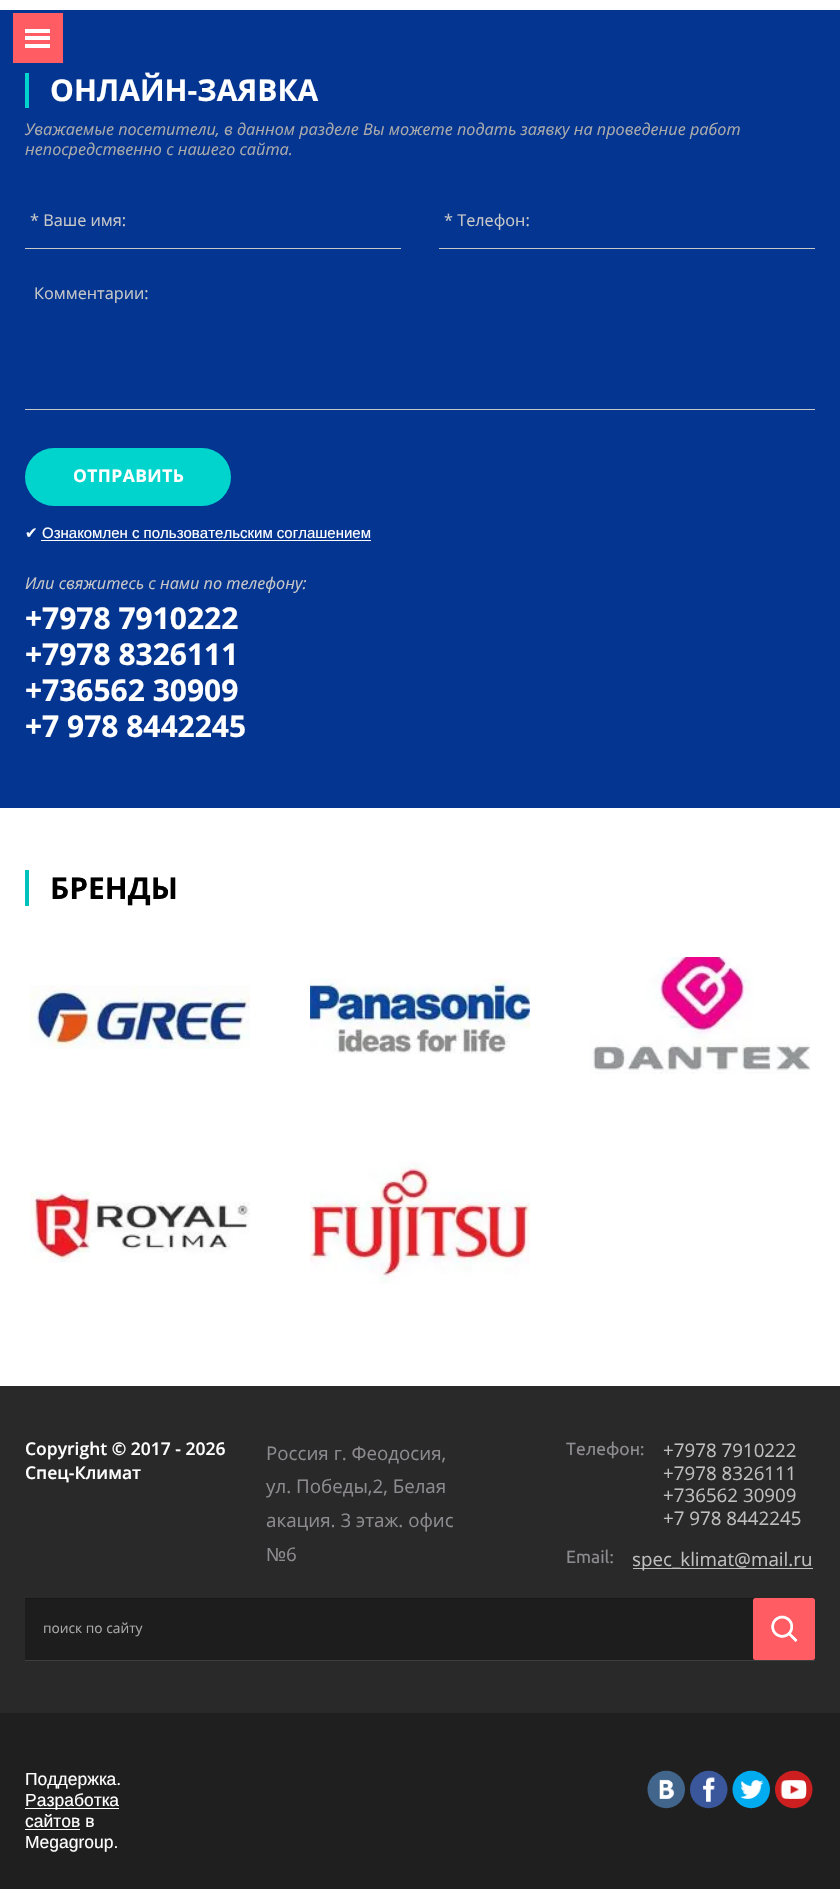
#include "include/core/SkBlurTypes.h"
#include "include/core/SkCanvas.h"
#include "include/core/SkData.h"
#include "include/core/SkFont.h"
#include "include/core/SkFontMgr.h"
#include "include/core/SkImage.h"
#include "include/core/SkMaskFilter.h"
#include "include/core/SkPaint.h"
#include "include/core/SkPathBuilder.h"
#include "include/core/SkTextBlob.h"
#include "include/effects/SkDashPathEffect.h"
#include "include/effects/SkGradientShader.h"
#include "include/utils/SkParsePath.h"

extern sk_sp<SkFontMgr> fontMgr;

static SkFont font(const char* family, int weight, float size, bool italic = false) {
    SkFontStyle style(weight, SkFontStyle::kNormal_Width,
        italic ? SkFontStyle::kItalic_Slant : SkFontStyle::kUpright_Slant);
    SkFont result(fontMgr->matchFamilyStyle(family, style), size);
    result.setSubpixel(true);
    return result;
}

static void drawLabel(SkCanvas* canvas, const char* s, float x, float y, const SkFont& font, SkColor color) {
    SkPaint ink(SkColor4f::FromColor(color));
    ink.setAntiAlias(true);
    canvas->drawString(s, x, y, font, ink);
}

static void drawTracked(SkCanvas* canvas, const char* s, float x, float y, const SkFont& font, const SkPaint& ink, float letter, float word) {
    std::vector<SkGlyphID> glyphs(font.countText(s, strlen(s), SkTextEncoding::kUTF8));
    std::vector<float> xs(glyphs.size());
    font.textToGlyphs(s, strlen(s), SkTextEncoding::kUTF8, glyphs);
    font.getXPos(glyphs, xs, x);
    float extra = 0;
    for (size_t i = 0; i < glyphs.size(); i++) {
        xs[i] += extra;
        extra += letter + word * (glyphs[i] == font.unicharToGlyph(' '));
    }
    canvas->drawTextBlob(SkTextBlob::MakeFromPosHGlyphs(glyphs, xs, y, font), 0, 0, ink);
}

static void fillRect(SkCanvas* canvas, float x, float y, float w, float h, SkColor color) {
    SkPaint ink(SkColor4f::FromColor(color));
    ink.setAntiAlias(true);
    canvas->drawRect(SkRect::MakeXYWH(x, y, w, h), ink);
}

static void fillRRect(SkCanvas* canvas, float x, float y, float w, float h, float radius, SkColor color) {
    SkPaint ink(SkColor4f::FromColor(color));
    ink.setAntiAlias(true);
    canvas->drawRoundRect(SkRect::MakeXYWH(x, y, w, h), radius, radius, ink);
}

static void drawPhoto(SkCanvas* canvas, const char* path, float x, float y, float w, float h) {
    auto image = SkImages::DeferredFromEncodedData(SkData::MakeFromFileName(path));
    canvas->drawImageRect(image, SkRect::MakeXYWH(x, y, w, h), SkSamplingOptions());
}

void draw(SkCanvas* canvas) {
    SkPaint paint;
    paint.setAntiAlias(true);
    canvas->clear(0xFFFFFFFF);
    fillRect(canvas, 0, 10, 840, 798, 0xFF033591);
    fillRect(canvas, 13, 13, 50, 50, 0xFFFF5C64);
    fillRect(canvas, 25, 29, 25, 4, 0xFFFFFFFF);
    fillRect(canvas, 25, 36, 25, 4, 0xFFFFFFFF);
    fillRect(canvas, 25, 44, 25, 4, 0xFFFFFFFF);
    fillRect(canvas, 25, 73, 4, 35, 0xFF00D4CD);
    SkFont font1 = font("Open Sans", 700, 30);
    drawLabel(canvas, "ОНЛАЙН-ЗАЯВКА", 50, 101, font1, 0xFFFFFFFF);
    SkFont font2 = font("Open Sans", 400, 16.25f, true);
    drawLabel(canvas, "Уважаемые посетители, в данном разделе Вы можете подать заявку на проведение работ", 25, 135, font2, 0xFFABABAB);
    drawLabel(canvas, "непосредственно с нашего сайта.", 25, 155, font2, 0xFFABABAB);
    fillRect(canvas, 25, 248, 376, 1, 0xFFC7C7C7);
    SkFont font3 = font("Open Sans", 400, 16.25f);
    drawLabel(canvas, "* Ваше имя:", 30, 226, font3, 0xFFC8C8C8);
    fillRect(canvas, 439, 248, 376, 1, 0xFFC7C7C7);
    drawLabel(canvas, "* Телефон:", 444, 226, font3, 0xFFC8C8C8);
    fillRect(canvas, 25, 409, 790, 1, 0xFFC7C7C7);
    drawLabel(canvas, "Комментарии:", 34, 299, font3, 0xFFC8C8C8);
    fillRRect(canvas, 25, 448, 206, 58, 29, 0xFF00D4CD);
    SkFont font4 = font("Open Sans", 700, 17.5f);
    paint.setColor(0xFFFFFFFF);
    drawTracked(canvas, "ОТПРАВИТЬ", 73, 482, font4, paint, 0.4f, 0);
    SkFont font5 = font("DejaVu Sans", 400, 15);
    drawLabel(canvas, "✔", 25, 538, font5, 0xFFFFFFFF);
    SkFont font6 = font("Liberation Sans", 400, 15);
    drawLabel(canvas, "Ознакомлен с пользовательским соглашением", 42, 538, font6, 0xFFFFFFFF);
    fillRect(canvas, 41, 540, 330, 1, 0xFFFFFFFF);
    drawLabel(canvas, "Или свяжитесь с нами по телефону:", 25, 589, font2, 0xFFC8C8C8);
    drawLabel(canvas, "+7978 7910222", 25, 629, font1, 0xFFFFFFFF);
    drawLabel(canvas, "+7978 8326111", 25, 665, font1, 0xFFFFFFFF);
    drawLabel(canvas, "+736562 30909", 25, 701, font1, 0xFFFFFFFF);
    drawLabel(canvas, "+7 978 8442245", 25, 737, font1, 0xFFFFFFFF);
    fillRect(canvas, 25, 870, 4, 36, 0xFF00C2BC);
    drawLabel(canvas, "БРЕНДЫ", 50, 899, font1, 0xFF000000);
    drawPhoto(canvas, "assets/img1.png", 30, 985, 220, 64);
    drawPhoto(canvas, "assets/img2.png", 310, 978, 220, 76);
    drawPhoto(canvas, "assets/img3.png", 590, 957, 220, 117);
    drawPhoto(canvas, "assets/img4.png", 30, 1191, 220, 72);
    drawPhoto(canvas, "assets/img5.png", 310, 1161, 220, 123);
    fillRect(canvas, 0, 1386, 840, 327, 0xFF292929);
    SkFont font7 = font("Open Sans", 600, 17.5f);
    drawLabel(canvas, "Copyright © 2017 - 2026", 25, 1455, font7, 0xFFFFFFFF);
    drawLabel(canvas, "Спец-Климат", 25, 1479, font7, 0xFFFFFFFF);
    SkFont font8 = font("Open Sans", 400, 18.75f);
    drawLabel(canvas, "Россия г. Феодосия,", 266, 1460, font8, 0xFF8D8B8F);
    drawLabel(canvas, "ул. Победы,2, Белая", 266, 1493, font8, 0xFF8D8B8F);
    drawLabel(canvas, "акация. 3 этаж. офис", 266, 1527, font8, 0xFF8D8B8F);
    SkFont font9 = font("Liberation Sans", 400, 18.75f);
    drawLabel(canvas, "№", 266, 1561, font9, 0xFF8D8B8F);
    drawLabel(canvas, "6", 286, 1561, font8, 0xFF8D8B8F);
    SkFont font10 = font("Ubuntu", 400, 17.5f);
    drawLabel(canvas, "Телефон:", 566, 1455, font10, 0xFF8D8B8F);
    drawLabel(canvas, "+7978 7910222", 663, 1457, font8, 0xFFBFBFBF);
    drawLabel(canvas, "+7978 8326111", 663, 1480, font8, 0xFFBFBFBF);
    drawLabel(canvas, "+736562 30909", 663, 1502, font8, 0xFFBFBFBF);
    drawLabel(canvas, "+7 978 8442245", 663, 1525, font8, 0xFFBFBFBF);
    drawLabel(canvas, "Email:", 566, 1563, font10, 0xFF8D8B8F);
    fillRect(canvas, 633, 1568, 180, 1, 0xFFBFBFBF);
    drawLabel(canvas, "spec_klimat@mail.ru", 632, 1566, font8, 0xFFBFBFBF);
    fillRect(canvas, 25, 1660, 790, 1, 0xFF3E3E3E);
    fillRect(canvas, 25, 1599, 790, 61, 0xFF1D1D1D);
    fillRect(canvas, 25, 1598, 790, 1, 0xFF171717);
    SkFont font11 = font("Open Sans", 400, 13.75f);
    drawLabel(canvas, "поиск по сайту", 43, 1633, font11, 0xFFABABAB);
    fillRRect(canvas, 753, 1598, 62, 62, 2.5f, 0xFFFF5C64);
    drawPhoto(canvas, "assets/img6.png", 771, 1615, 27, 27);
    fillRect(canvas, 0, 1713, 840, 176, 0xFF1F1F1F);
    SkFont font12 = font("Liberation Sans", 400, 17.5f);
    drawLabel(canvas, "Поддержка.", 25, 1785, font12, 0xFFFFFFFF);
    fillRect(canvas, 25, 1808, 94, 1, 0xFFFFFFFF);
    drawLabel(canvas, "Разработка", 25, 1806, font12, 0xFFFFFFFF);
    drawLabel(canvas, "сайтов в", 25, 1827, font12, 0xFFFFFFFF);
    fillRect(canvas, 25, 1829, 55, 1, 0xFFFFFFFF);
    drawLabel(canvas, "Megagroup.", 25, 1848, font12, 0xFFFFFFFF);
    drawPhoto(canvas, "assets/img7.png", 647, 1770, 38, 39);
    drawPhoto(canvas, "assets/img8.png", 689, 1770, 39, 39);
    drawPhoto(canvas, "assets/img9.png", 732, 1770, 39, 39);
    drawPhoto(canvas, "assets/img10.png", 774, 1770, 39, 39);
}
